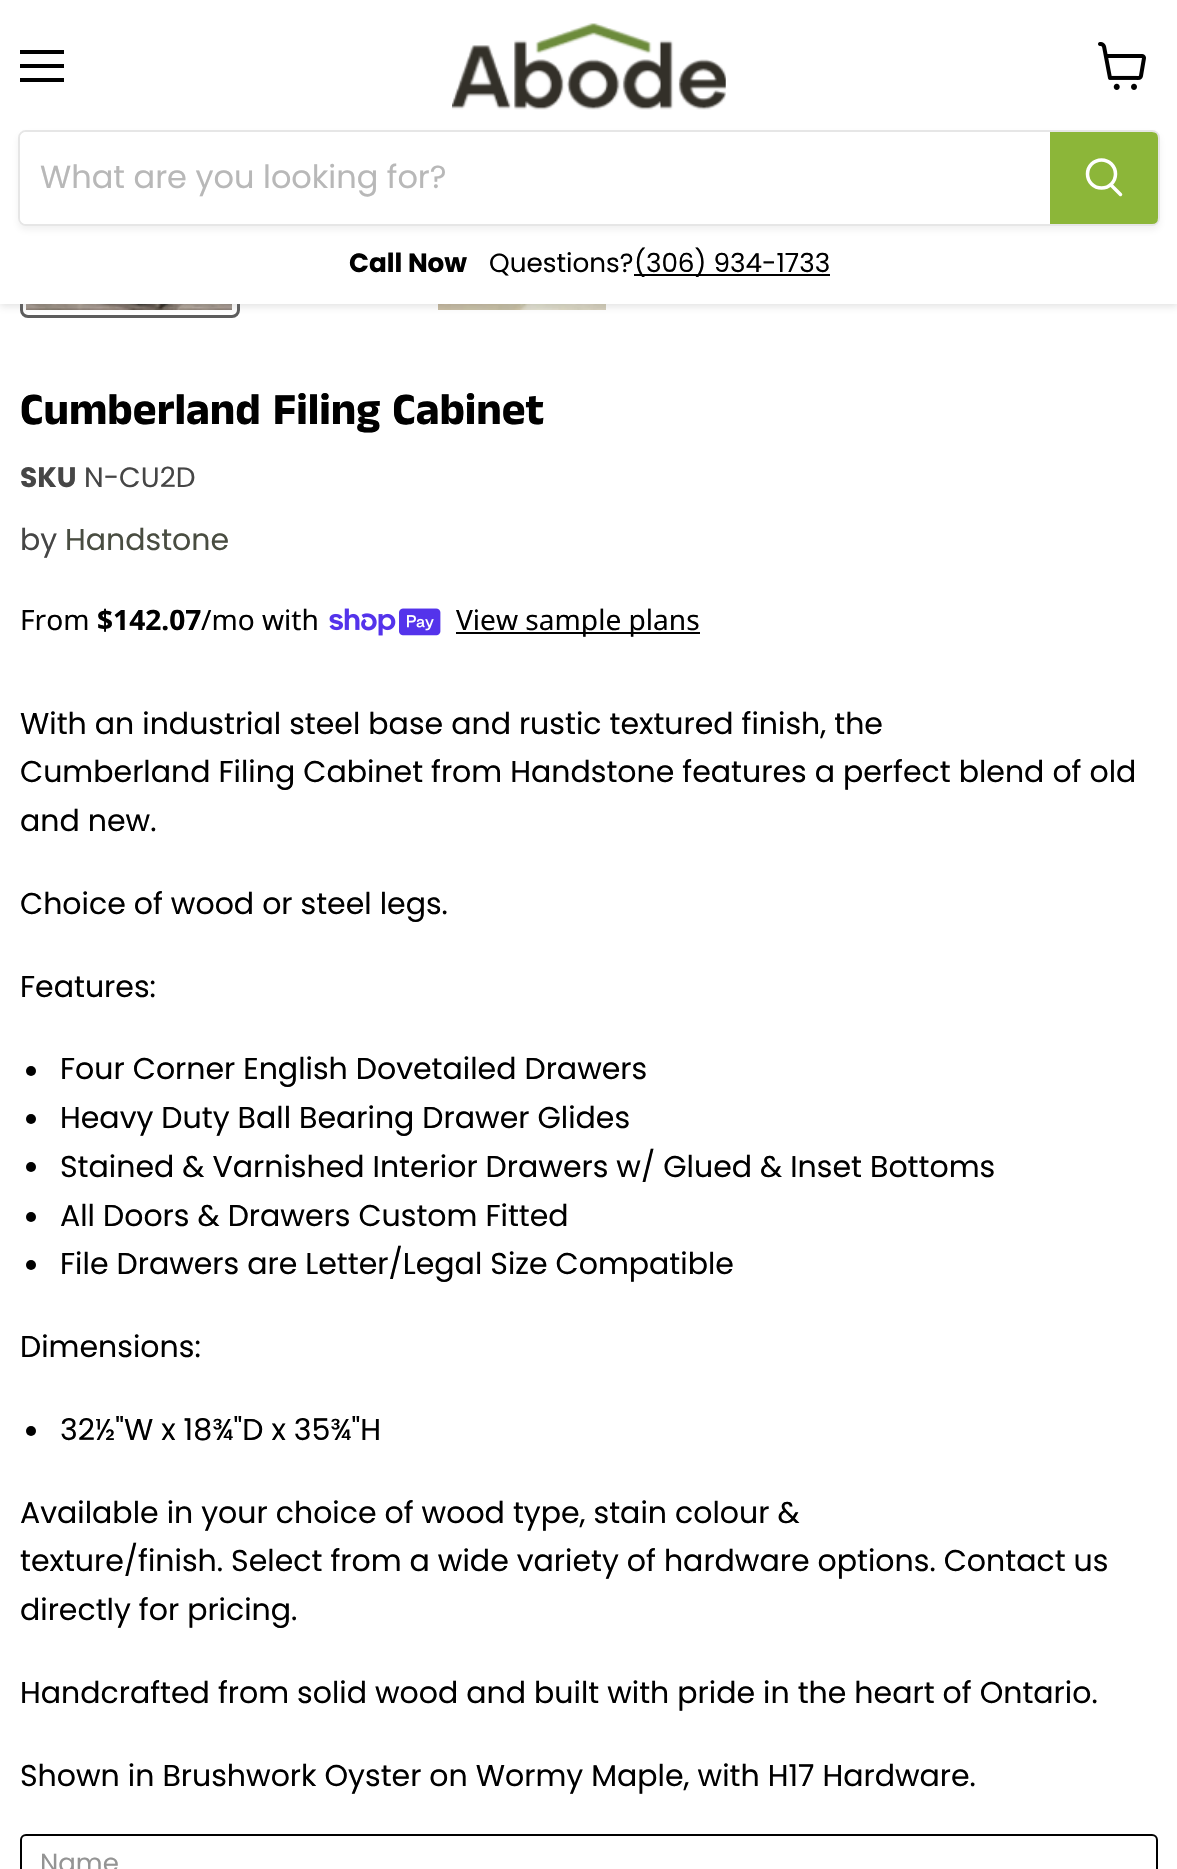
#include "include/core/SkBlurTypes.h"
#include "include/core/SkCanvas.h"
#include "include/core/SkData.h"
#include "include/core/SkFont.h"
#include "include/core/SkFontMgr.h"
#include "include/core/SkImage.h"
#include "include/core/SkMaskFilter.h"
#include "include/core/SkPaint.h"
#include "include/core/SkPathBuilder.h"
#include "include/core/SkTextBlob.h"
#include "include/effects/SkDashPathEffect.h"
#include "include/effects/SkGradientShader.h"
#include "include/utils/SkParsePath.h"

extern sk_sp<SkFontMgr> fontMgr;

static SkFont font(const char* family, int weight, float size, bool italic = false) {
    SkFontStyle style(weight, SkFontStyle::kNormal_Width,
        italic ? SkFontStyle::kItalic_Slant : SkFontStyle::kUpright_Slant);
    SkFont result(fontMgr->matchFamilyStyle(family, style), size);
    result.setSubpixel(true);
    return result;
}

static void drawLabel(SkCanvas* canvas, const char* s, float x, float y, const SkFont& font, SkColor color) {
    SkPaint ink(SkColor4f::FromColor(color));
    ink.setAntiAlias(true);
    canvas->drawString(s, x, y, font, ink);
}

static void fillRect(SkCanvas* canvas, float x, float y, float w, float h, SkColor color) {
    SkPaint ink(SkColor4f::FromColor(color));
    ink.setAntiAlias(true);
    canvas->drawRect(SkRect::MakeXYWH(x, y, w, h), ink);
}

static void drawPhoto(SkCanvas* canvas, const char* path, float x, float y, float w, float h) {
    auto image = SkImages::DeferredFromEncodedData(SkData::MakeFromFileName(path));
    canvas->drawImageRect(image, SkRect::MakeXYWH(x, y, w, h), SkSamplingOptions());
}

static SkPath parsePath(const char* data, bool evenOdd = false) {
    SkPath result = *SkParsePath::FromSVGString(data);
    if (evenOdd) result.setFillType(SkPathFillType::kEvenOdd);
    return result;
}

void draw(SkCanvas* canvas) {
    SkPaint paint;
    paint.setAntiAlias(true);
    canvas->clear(0xFFFFFFFF);
    paint.setStroke(true);
    paint.setStrokeWidth(3);
    paint.setColor(0xFF5C5C5C);
    canvas->drawRoundRect(SkRect::MakeXYWH(21.5f, 185.5f, 217, 131), 6.5f, 6.5f, paint);
    drawPhoto(canvas, "assets/img3.png", 26, 304, 206, 6);
    drawPhoto(canvas, "assets/img4.png", 438, 304, 168, 6);
    paint.setStroke(false);
    paint.setColor(0x40808080);
    paint.setMaskFilter(SkMaskFilter::MakeBlur(kNormal_SkBlurStyle, 4));
    canvas->drawRect(SkRect::MakeXYWH(0, 2, 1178, 304), paint);
    paint.setMaskFilter(nullptr);
    fillRect(canvas, 0, 0, 1177, 304, 0xFFFFFFFF);
    fillRect(canvas, 20, 50, 44, 4, 0xFF000000);
    fillRect(canvas, 20, 64, 44, 4, 0xFF000000);
    fillRect(canvas, 20, 78, 44, 4, 0xFF000000);
    drawPhoto(canvas, "assets/img1.png", 1098, 42, 48, 48);
    drawPhoto(canvas, "assets/img2.png", 452, 23, 274, 87);
    canvas->save();
    canvas->clipPath(parsePath("M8 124H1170V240H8ZM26 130H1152C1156.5 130 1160 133.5 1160 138V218C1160 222.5 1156.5 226 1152 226H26C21.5 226 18 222.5 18 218V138C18 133.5 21.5 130 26 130Z", true), true);
    paint.setColor(0x1C808080);
    paint.setMaskFilter(SkMaskFilter::MakeBlur(kNormal_SkBlurStyle, 3));
    canvas->drawRoundRect(SkRect::MakeXYWH(18, 134, 1142, 96), 8, 8, paint);
    paint.setMaskFilter(nullptr);
    canvas->restore();
    paint.setStroke(true);
    paint.setStrokeWidth(2);
    paint.setColor(0x33808080);
    canvas->drawRoundRect(SkRect::MakeXYWH(19, 131, 1140, 94), 7, 7, paint);
    paint.setStroke(false);
    paint.setColor(0xFFFFFFFF);
    canvas->drawPath(parsePath("M26 132H1050V224H26C22.5 224 20 221.5 20 218V138C20 134.5 22.5 132 26 132Z"), paint);
    SkFont font1 = font("Poppins", 400, 32);
    drawLabel(canvas, "What are you looking for?", 40, 188, font1, 0xFFB8B8B8);
    paint.setColor(0xFF8CB639);
    canvas->drawPath(parsePath("M1051 133H1152C1155 133 1157 135 1157 138V218C1157 221 1155 223 1152 223H1051Z"), paint);
    paint.setStroke(true);
    canvas->drawPath(parsePath("M1051 133H1152C1155 133 1157 135 1157 138V218C1157 221 1155 223 1152 223H1051Z"), paint);
    paint.setStrokeWidth(3.5f);
    paint.setStrokeCap(SkPaint::kRound_Cap);
    paint.setColor(0xFFFFFFFF);
    canvas->drawPath(parsePath("M1120.5 194.5L1111 185"), paint);
    paint.setStrokeCap(SkPaint::kButt_Cap);
    canvas->drawCircle(1101.5f, 174, 14, paint);
    SkFont font2 = font("Poppins", 700, 26.25f);
    drawLabel(canvas, "Call Now", 349, 272, font2, 0xFF000000);
    SkFont font3 = font("Poppins", 400, 26.25f);
    drawLabel(canvas, "Questions?", 489, 272, font3, 0xFF000000);
    fillRect(canvas, 634, 274, 196, 2, 0xFF000000);
    drawLabel(canvas, "(306) 934-1733", 634, 272, font3, 0xFF000000);
    SkFont font4 = font("Anek Tamil", 700, 45);
    drawLabel(canvas, "Cumberland Filing Cabinet", 20, 424, font4, 0xFF000000);
    SkFont font5 = font("Poppins", 700, 28);
    drawLabel(canvas, "SKU", 20, 487, font5, 0xFF464646);
    SkFont font6 = font("Poppins", 400, 28);
    drawLabel(canvas, "N-CU2D", 84, 487, font6, 0xFF464646);
    SkFont font7 = font("Poppins", 400, 30);
    drawLabel(canvas, "by", 20, 550, font7, 0xFF464646);
    drawLabel(canvas, "Handstone", 65, 550, font7, 0xFF494D41);
    SkFont font8 = font("Noto Sans", 400, 28.1f);
    drawLabel(canvas, "From", 20, 630, font8, 0xFF000000);
    SkFont font9 = font("Noto Sans", 700, 28.1f);
    drawLabel(canvas, "$142.07", 97, 630, font9, 0xFF000000);
    drawLabel(canvas, "/mo with", 201, 630, font8, 0xFF000000);
    drawPhoto(canvas, "assets/img5.png", 329, 608, 112, 28);
    fillRect(canvas, 456, 632, 244, 2, 0xFF000000);
    drawLabel(canvas, "View sample plans", 456, 630, font8, 0xFF000000);
    drawLabel(canvas, "With an industrial steel base and rustic textured finish, the", 20, 734, font7, 0xFF000000);
    drawLabel(canvas, "Cumberland Filing Cabinet from Handstone features a perfect blend of old", 20, 782, font7, 0xFF000000);
    drawLabel(canvas, "and new.", 20, 831, font7, 0xFF000000);
    drawLabel(canvas, "Choice of wood or steel legs.", 20, 914, font7, 0xFF000000);
    drawLabel(canvas, "Features:", 20, 997, font7, 0xFF000000);
    paint.setStroke(false);
    paint.setColor(0xFF000000);
    canvas->drawCircle(31, 1071, 5, paint);
    drawLabel(canvas, "Four Corner English Dovetailed Drawers", 60, 1079, font7, 0xFF000000);
    canvas->drawCircle(31, 1119, 5, paint);
    drawLabel(canvas, "Heavy Duty Ball Bearing Drawer Glides", 60, 1128, font7, 0xFF000000);
    canvas->drawCircle(31, 1167, 5, paint);
    drawLabel(canvas, "Stained & Varnished Interior Drawers w/ Glued & Inset Bottoms", 60, 1177, font7, 0xFF000000);
    canvas->drawCircle(31, 1217, 5, paint);
    drawLabel(canvas, "All Doors & Drawers Custom Fitted", 60, 1226, font7, 0xFF000000);
    canvas->drawCircle(31, 1265, 5, paint);
    drawLabel(canvas, "File Drawers are Letter/Legal Size Compatible", 60, 1274, font7, 0xFF000000);
    drawLabel(canvas, "Dimensions:", 20, 1357, font7, 0xFF000000);
    canvas->drawCircle(31, 1431, 5, paint);
    drawLabel(canvas, "32½\"W x 18¾\"D x 35¾\"H", 60, 1440, font7, 0xFF000000);
    drawLabel(canvas, "Available in your choice of wood type, stain colour &", 20, 1523, font7, 0xFF000000);
    drawLabel(canvas, "texture/finish. Select from a wide variety of hardware options. Contact us", 20, 1571, font7, 0xFF000000);
    drawLabel(canvas, "directly for pricing.", 20, 1620, font7, 0xFF000000);
    drawLabel(canvas, "Handcrafted from solid wood and built with pride in the heart of Ontario.", 20, 1703, font7, 0xFF000000);
    drawLabel(canvas, "Shown in Brushwork Oyster on Wormy Maple, with H17 Hardware.", 20, 1786, font7, 0xFF000000);
    paint.setStroke(true);
    paint.setStrokeWidth(2);
    canvas->drawRoundRect(SkRect::MakeXYWH(21, 1835, 1136, 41), 5, 5, paint);
    SkFont font10 = font("Poppins", 400, 26);
    drawLabel(canvas, "Name", 40, 1872, font10, 0xFF949494);
}
